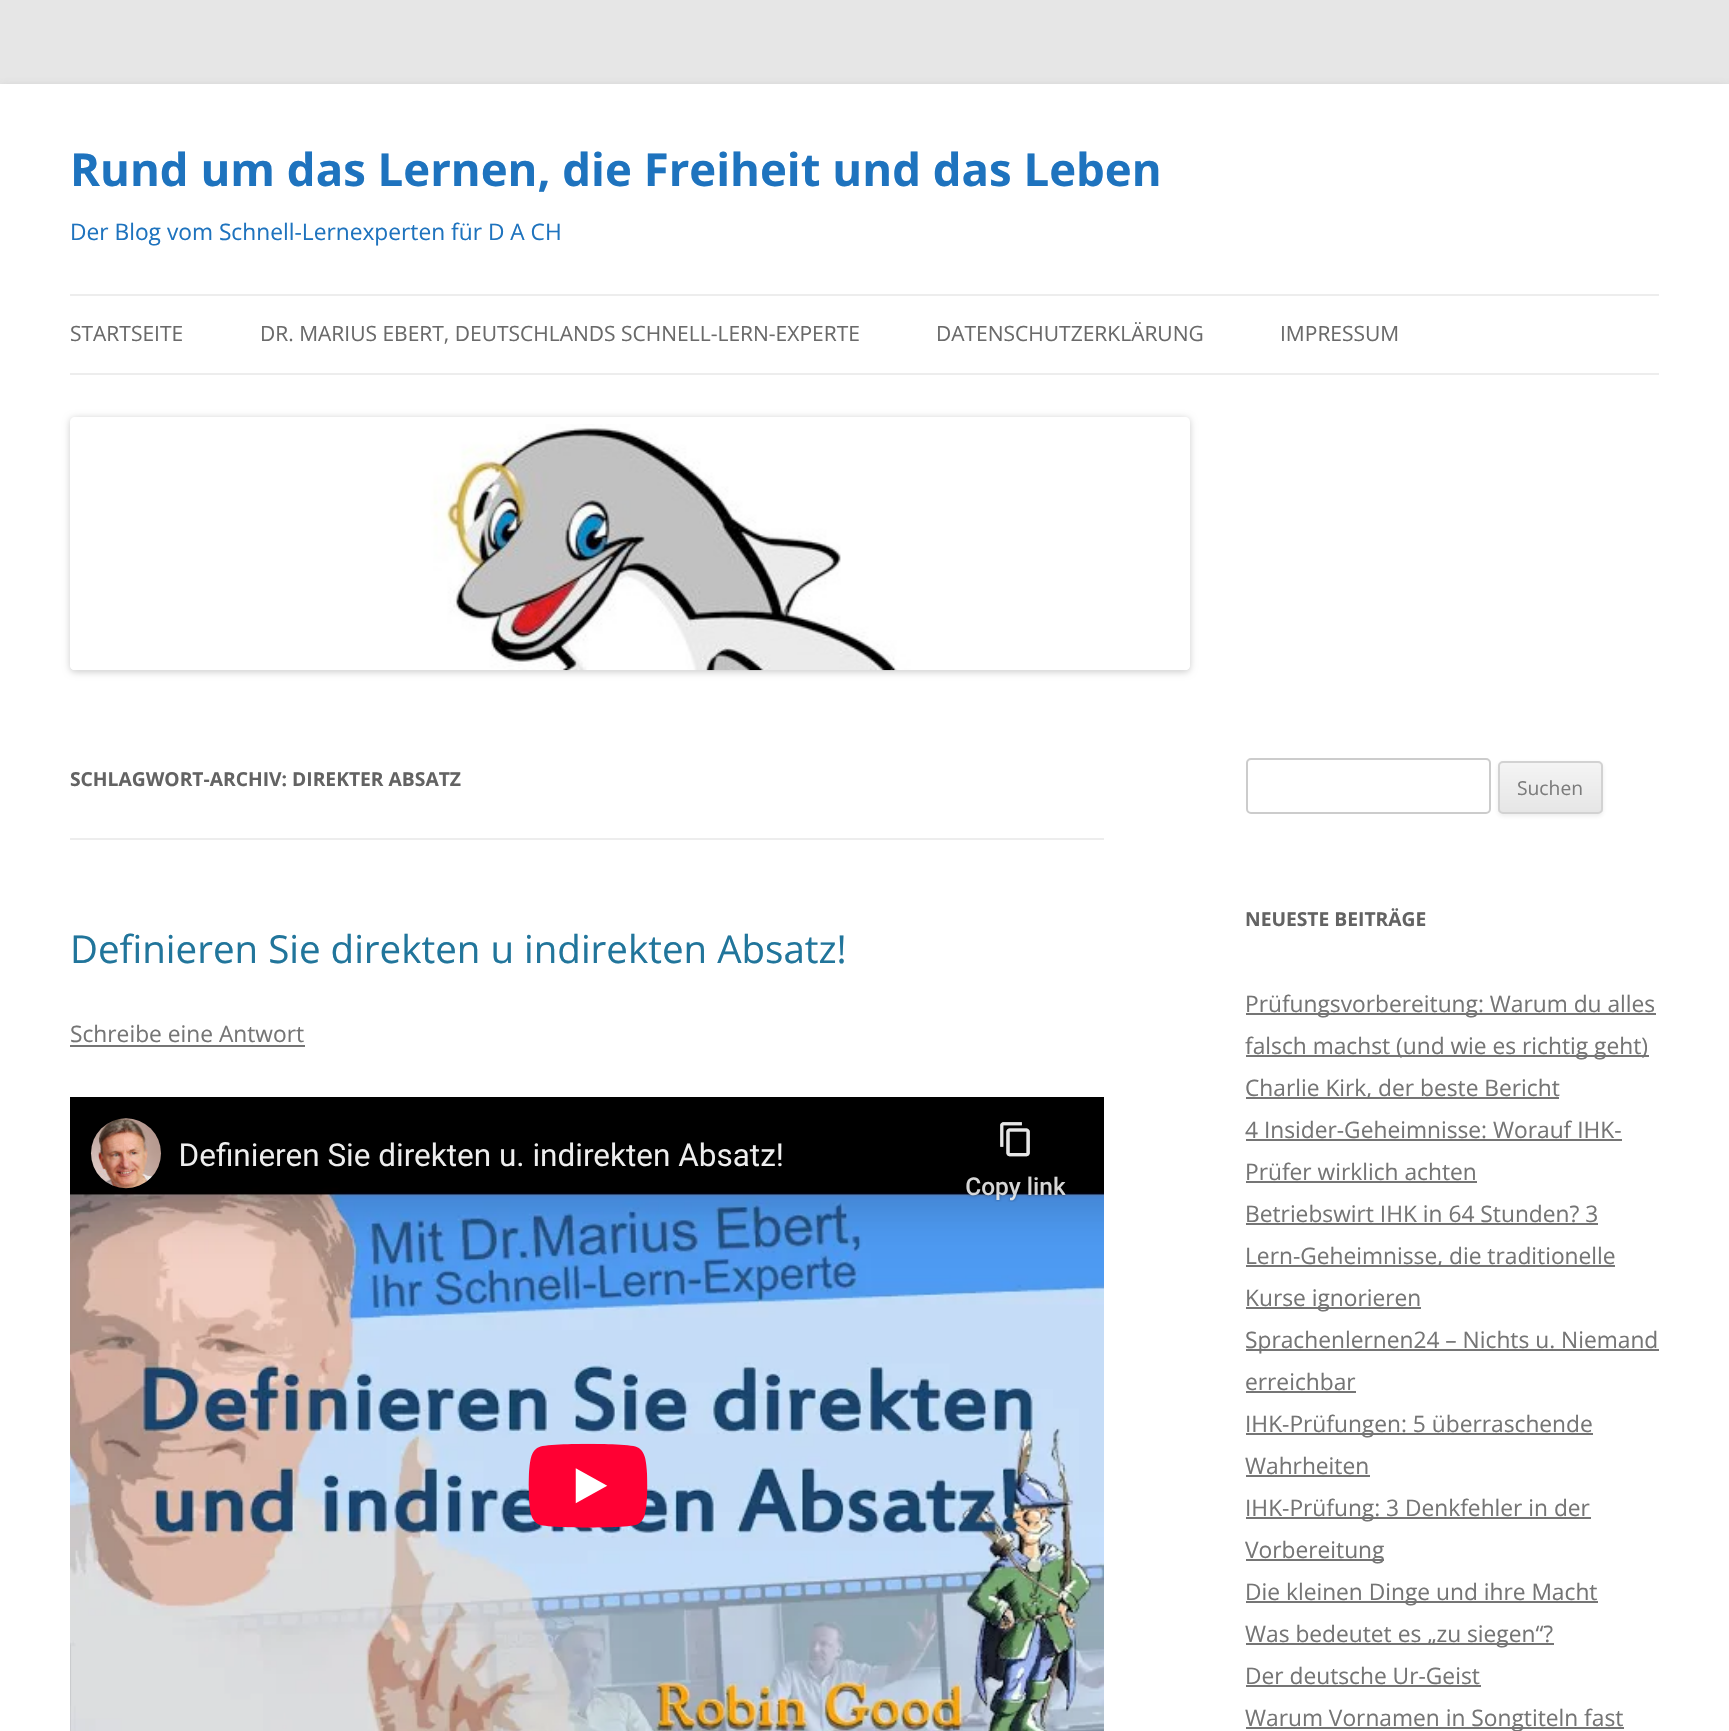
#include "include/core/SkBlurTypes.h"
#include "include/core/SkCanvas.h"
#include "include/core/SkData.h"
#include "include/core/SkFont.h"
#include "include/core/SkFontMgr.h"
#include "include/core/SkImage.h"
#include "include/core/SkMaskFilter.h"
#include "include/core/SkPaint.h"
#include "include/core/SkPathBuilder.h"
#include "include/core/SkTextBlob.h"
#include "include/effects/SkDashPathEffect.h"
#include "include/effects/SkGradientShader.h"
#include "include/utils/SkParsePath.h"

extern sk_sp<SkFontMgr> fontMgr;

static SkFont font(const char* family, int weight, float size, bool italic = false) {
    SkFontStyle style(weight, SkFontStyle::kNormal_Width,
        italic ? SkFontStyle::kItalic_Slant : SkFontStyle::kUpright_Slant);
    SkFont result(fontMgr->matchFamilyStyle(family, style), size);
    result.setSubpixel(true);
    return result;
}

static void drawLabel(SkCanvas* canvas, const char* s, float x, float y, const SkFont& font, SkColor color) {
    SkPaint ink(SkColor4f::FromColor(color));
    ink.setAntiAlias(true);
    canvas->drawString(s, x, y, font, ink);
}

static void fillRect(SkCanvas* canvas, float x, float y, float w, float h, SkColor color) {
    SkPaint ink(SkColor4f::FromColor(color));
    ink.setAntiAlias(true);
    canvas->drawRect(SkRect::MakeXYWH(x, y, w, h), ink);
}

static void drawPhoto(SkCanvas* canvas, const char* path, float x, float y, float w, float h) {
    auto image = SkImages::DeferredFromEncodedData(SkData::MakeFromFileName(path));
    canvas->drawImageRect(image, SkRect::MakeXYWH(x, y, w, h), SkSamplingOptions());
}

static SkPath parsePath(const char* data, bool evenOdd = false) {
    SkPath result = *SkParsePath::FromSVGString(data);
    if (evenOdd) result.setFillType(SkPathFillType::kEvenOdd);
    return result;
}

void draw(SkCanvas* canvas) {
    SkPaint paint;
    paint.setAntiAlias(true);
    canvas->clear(0xFFE6E6E6);
    paint.setColor(0x4D646464);
    paint.setMaskFilter(SkMaskFilter::MakeBlur(kNormal_SkBlurStyle, 5));
    canvas->drawRect(SkRect::MakeXYWH(0, 88, 1729, 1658), paint);
    paint.setMaskFilter(nullptr);
    fillRect(canvas, 0, 84, 1729, 1647, 0xFFFFFFFF);
    SkFont font1 = font("Open Sans", 700, 45.5f);
    drawLabel(canvas, "Rund um das Lernen, die Freiheit und das Leben", 70, 186, font1, 0xFF1E73BE);
    SkFont font2 = font("Open Sans", 400, 22.75f);
    drawLabel(canvas, "Der Blog vom Schnell-Lernexperten für D A CH", 70, 240, font2, 0xFF1E73BE);
    fillRect(canvas, 70, 294, 1589, 2, 0xFFEDEDED);
    fillRect(canvas, 70, 373, 1589, 2, 0xFFEDEDED);
    SkFont font3 = font("Open Sans", 400, 21);
    drawLabel(canvas, "STARTSEITE", 70, 341, font3, 0xFF6A6A6A);
    drawLabel(canvas, "DR. MARIUS EBERT, DEUTSCHLANDS SCHNELL-LERN-EXPERTE", 260, 341, font3, 0xFF6A6A6A);
    drawLabel(canvas, "DATENSCHUTZERKLÄRUNG", 936, 341, font3, 0xFF6A6A6A);
    drawLabel(canvas, "IMPRESSUM", 1280, 341, font3, 0xFF6A6A6A);
    canvas->save();
    canvas->clipPath(parsePath("M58 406H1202V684H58ZM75 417H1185C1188 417 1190 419 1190 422V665C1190 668 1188 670 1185 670H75C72 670 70 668 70 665V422C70 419 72 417 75 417Z", true), true);
    paint.setColor(0x33000000);
    paint.setMaskFilter(SkMaskFilter::MakeBlur(kNormal_SkBlurStyle, 3.5f));
    canvas->drawRoundRect(SkRect::MakeXYWH(70, 418, 1120, 254), 5, 5, paint);
    paint.setMaskFilter(nullptr);
    canvas->restore();
    drawPhoto(canvas, "assets/img1.png", 70, 424, 1120, 247);
    fillRect(canvas, 70, 838, 1034, 2, 0xFFEDEDED);
    SkFont font4 = font("Open Sans", 700, 19.25f);
    drawLabel(canvas, "SCHLAGWORT-ARCHIV: DIREKTER ABSATZ", 70, 786, font4, 0xFF636363);
    SkFont font5 = font("Open Sans", 400, 38.5f);
    drawLabel(canvas, "Definieren Sie direkten u indirekten Absatz!", 70, 963, font5, 0xFF21759B);
    drawLabel(canvas, "Schreibe eine Antwort", 70, 1042, font2, 0xFF757575);
    fillRect(canvas, 70, 1045, 235, 2, 0xFF757575);
    fillRect(canvas, 70, 1097, 1034, 21, 0xFF000000);
    drawPhoto(canvas, "assets/img2.png", 70, 1118, 1034, 613);
    paint.setStroke(true);
    paint.setStrokeWidth(2);
    paint.setColor(0xFFCCCCCC);
    canvas->drawRoundRect(SkRect::MakeXYWH(1247, 759, 243, 54), 4, 4, paint);
    paint.setStroke(false);
    paint.setColor(0x1A404040);
    paint.setMaskFilter(SkMaskFilter::MakeBlur(kNormal_SkBlurStyle, 2));
    canvas->drawRoundRect(SkRect::MakeXYWH(1498, 763, 105, 53), 5, 5, paint);
    paint.setMaskFilter(nullptr);
    canvas->save();
    canvas->clipPath(parsePath("M1503 761H1598C1601 761 1603 763 1603 766V809C1603 812 1601 814 1598 814H1503C1500 814 1498 812 1498 809V766C1498 763 1500 761 1503 761Z"), true);
    {
        const SkColor colors[] = {0xFFF4F4F4, 0xFFE6E6E6};
        const float stops[] = {0, 1};
        const SkPoint ends[] = {{1551, 763}, {1551, 812}};
        paint.setShader(SkGradientShader::MakeLinear(ends, colors, stops, 2, SkTileMode::kClamp));
        paint.setAlpha(255);
    }
    canvas->drawRect(SkRect::MakeXYWH(1498, 763, 105, 49), paint);
    canvas->restore();
    paint.setStroke(true);
    paint.setShader(nullptr);
    paint.setColor(0xFFD2D2D2);
    canvas->drawRoundRect(SkRect::MakeXYWH(1499, 762, 103, 51), 4, 4, paint);
    SkFont font6 = font("Open Sans", 400, 19.25f);
    drawLabel(canvas, "Suchen", 1517, 795, font6, 0xFF7C7C7C);
    drawLabel(canvas, "NEUESTE BEITRÄGE", 1245, 926, font4, 0xFF636363);
    fillRect(canvas, 1246, 1013, 410, 2, 0xFF757575);
    drawLabel(canvas, "Prüfungsvorbereitung: Warum du alles", 1245, 1012, font2, 0xFF757575);
    fillRect(canvas, 1246, 1055, 403, 2, 0xFF757575);
    drawLabel(canvas, "falsch machst (und wie es richtig geht)", 1245, 1054, font2, 0xFF757575);
    fillRect(canvas, 1246, 1097, 313, 2, 0xFF757575);
    drawLabel(canvas, "Charlie Kirk, der beste Bericht", 1245, 1096, font2, 0xFF757575);
    drawLabel(canvas, "4 Insider-Geheimnisse: Worauf IHK-", 1245, 1138, font2, 0xFF757575);
    fillRect(canvas, 1246, 1139, 376, 2, 0xFF757575);
    drawLabel(canvas, "Prüfer wirklich achten", 1245, 1180, font2, 0xFF757575);
    fillRect(canvas, 1246, 1181, 231, 2, 0xFF757575);
    drawLabel(canvas, "Betriebswirt IHK in 64 Stunden? 3", 1245, 1222, font2, 0xFF757575);
    fillRect(canvas, 1246, 1223, 352, 2, 0xFF757575);
    fillRect(canvas, 1246, 1265, 369, 2, 0xFF757575);
    drawLabel(canvas, "Lern-Geheimnisse, die traditionelle", 1245, 1264, font2, 0xFF757575);
    fillRect(canvas, 1246, 1307, 175, 2, 0xFF757575);
    drawLabel(canvas, "Kurse ignorieren", 1245, 1306, font2, 0xFF757575);
    fillRect(canvas, 1246, 1349, 413, 2, 0xFF757575);
    drawLabel(canvas, "Sprachenlernen24 – Nichts u. Niemand", 1245, 1348, font2, 0xFF757575);
    drawLabel(canvas, "erreichbar", 1245, 1390, font2, 0xFF757575);
    fillRect(canvas, 1246, 1391, 110, 2, 0xFF757575);
    fillRect(canvas, 1246, 1433, 347, 2, 0xFF757575);
    drawLabel(canvas, "IHK-Prüfungen: 5 überraschende", 1245, 1432, font2, 0xFF757575);
    drawLabel(canvas, "Wahrheiten", 1245, 1474, font2, 0xFF757575);
    fillRect(canvas, 1246, 1475, 124, 2, 0xFF757575);
    fillRect(canvas, 1246, 1517, 345, 2, 0xFF757575);
    drawLabel(canvas, "IHK-Prüfung: 3 Denkfehler in der", 1245, 1516, font2, 0xFF757575);
    fillRect(canvas, 1246, 1559, 138, 2, 0xFF757575);
    drawLabel(canvas, "Vorbereitung", 1245, 1558, font2, 0xFF757575);
    fillRect(canvas, 1246, 1601, 352, 2, 0xFF757575);
    drawLabel(canvas, "Die kleinen Dinge und ihre Macht", 1245, 1600, font2, 0xFF757575);
    fillRect(canvas, 1246, 1643, 308, 2, 0xFF757575);
    drawLabel(canvas, "Was bedeutet es „zu siegen“?", 1245, 1642, font2, 0xFF757575);
    drawLabel(canvas, "Der deutsche Ur-Geist", 1245, 1684, font2, 0xFF757575);
    fillRect(canvas, 1246, 1685, 235, 2, 0xFF757575);
    fillRect(canvas, 1246, 1727, 378, 2, 0xFF757575);
    drawLabel(canvas, "Warum Vornamen in Songtiteln fast", 1245, 1726, font2, 0xFF757575);
}
